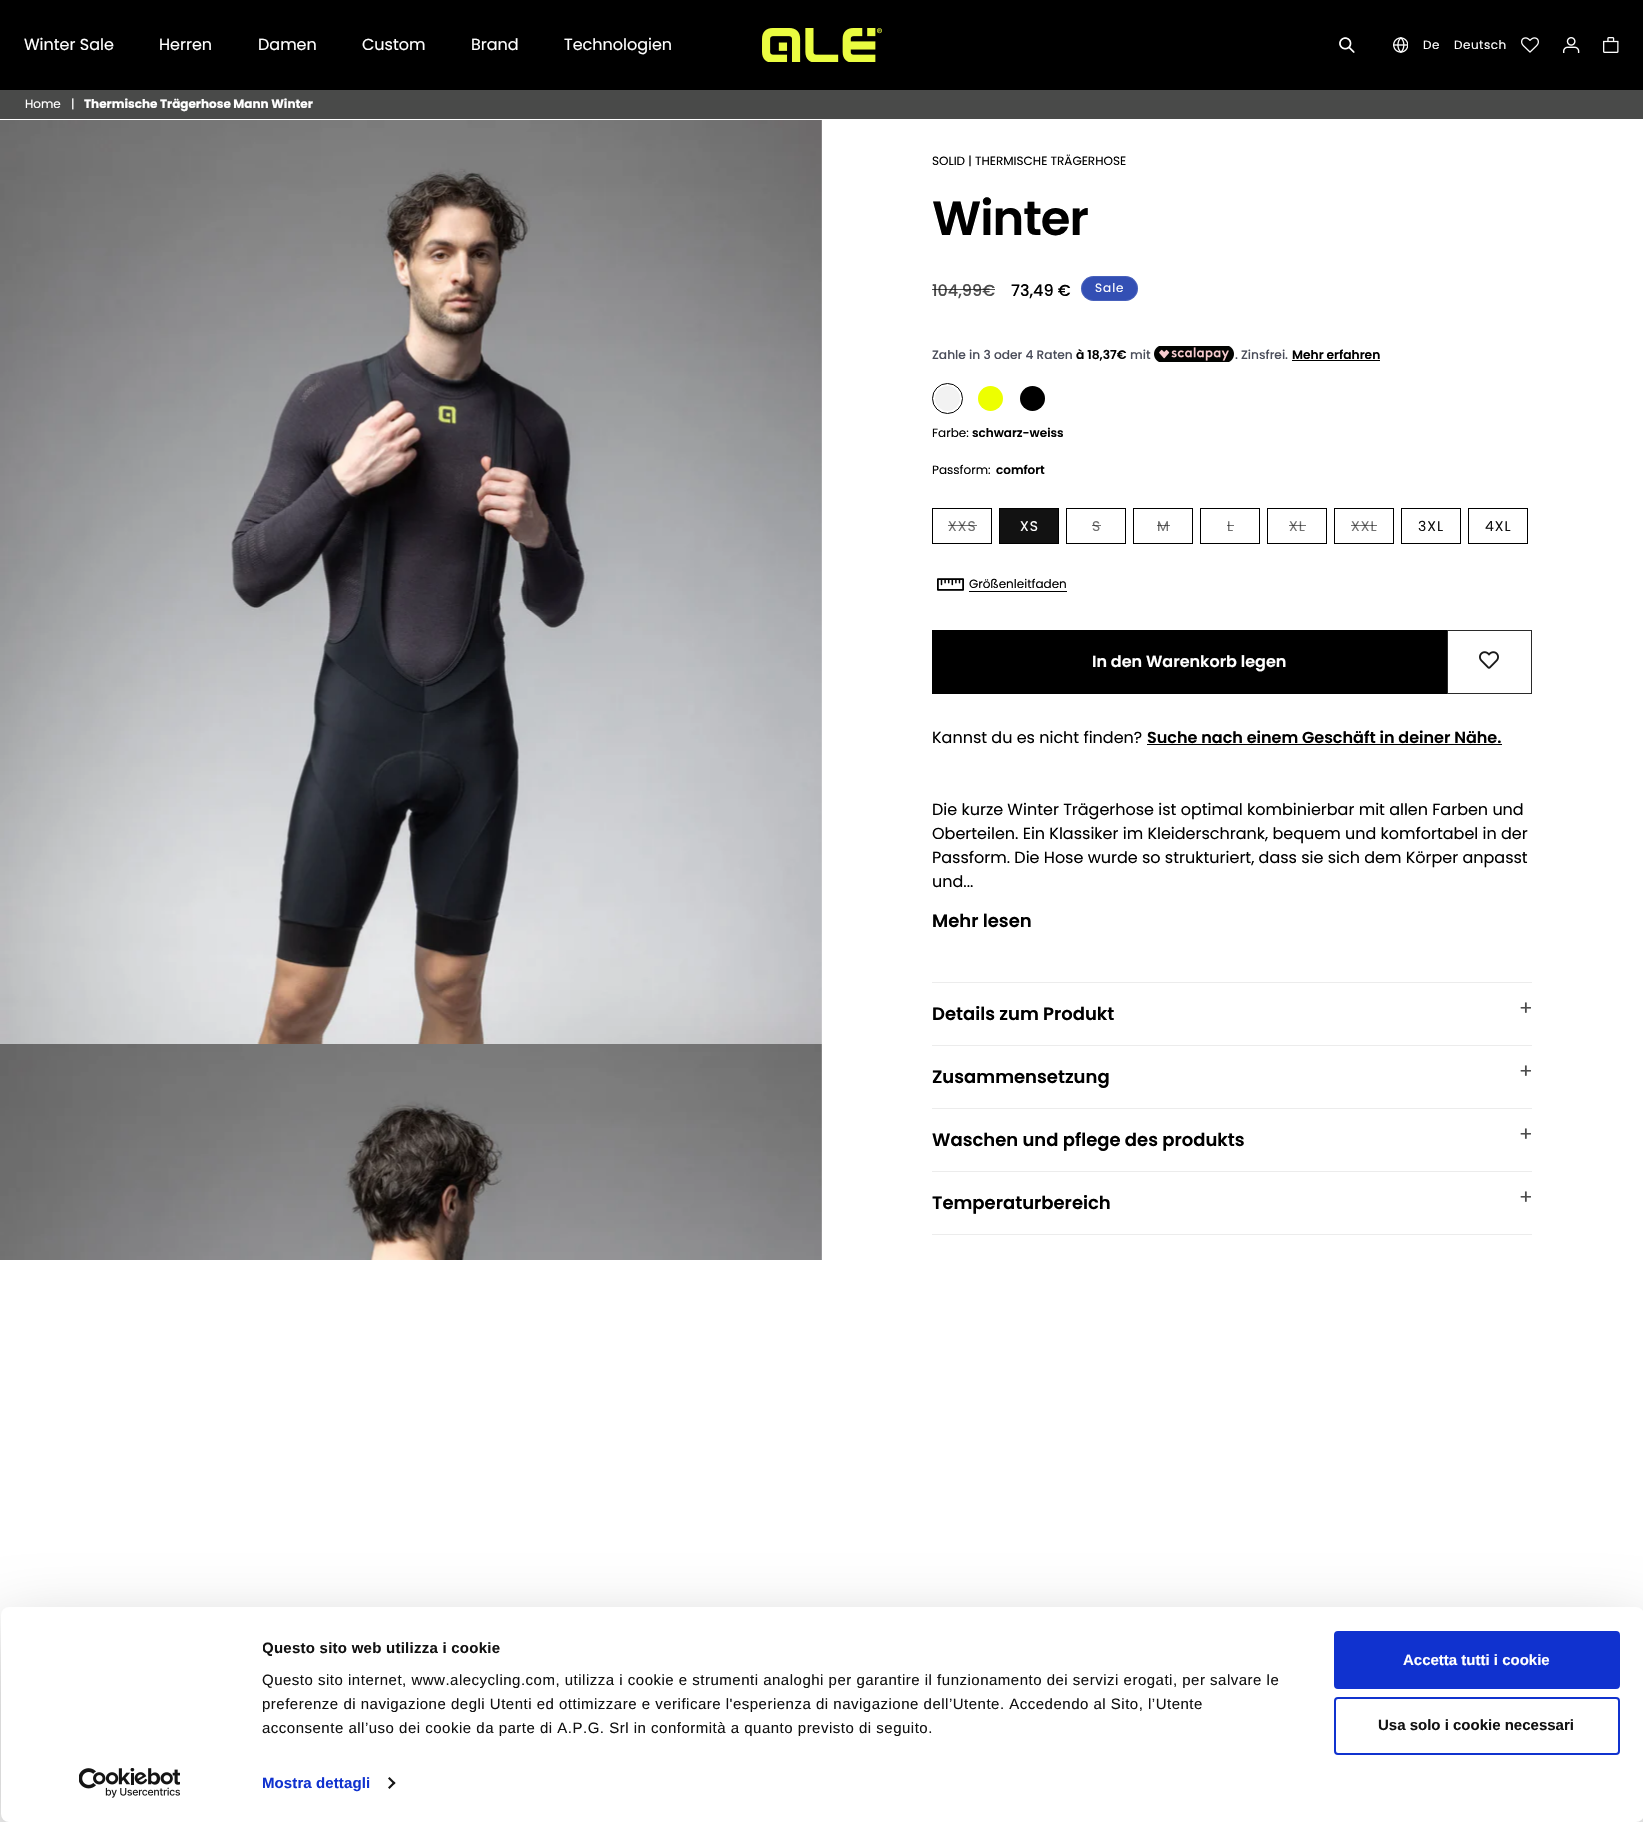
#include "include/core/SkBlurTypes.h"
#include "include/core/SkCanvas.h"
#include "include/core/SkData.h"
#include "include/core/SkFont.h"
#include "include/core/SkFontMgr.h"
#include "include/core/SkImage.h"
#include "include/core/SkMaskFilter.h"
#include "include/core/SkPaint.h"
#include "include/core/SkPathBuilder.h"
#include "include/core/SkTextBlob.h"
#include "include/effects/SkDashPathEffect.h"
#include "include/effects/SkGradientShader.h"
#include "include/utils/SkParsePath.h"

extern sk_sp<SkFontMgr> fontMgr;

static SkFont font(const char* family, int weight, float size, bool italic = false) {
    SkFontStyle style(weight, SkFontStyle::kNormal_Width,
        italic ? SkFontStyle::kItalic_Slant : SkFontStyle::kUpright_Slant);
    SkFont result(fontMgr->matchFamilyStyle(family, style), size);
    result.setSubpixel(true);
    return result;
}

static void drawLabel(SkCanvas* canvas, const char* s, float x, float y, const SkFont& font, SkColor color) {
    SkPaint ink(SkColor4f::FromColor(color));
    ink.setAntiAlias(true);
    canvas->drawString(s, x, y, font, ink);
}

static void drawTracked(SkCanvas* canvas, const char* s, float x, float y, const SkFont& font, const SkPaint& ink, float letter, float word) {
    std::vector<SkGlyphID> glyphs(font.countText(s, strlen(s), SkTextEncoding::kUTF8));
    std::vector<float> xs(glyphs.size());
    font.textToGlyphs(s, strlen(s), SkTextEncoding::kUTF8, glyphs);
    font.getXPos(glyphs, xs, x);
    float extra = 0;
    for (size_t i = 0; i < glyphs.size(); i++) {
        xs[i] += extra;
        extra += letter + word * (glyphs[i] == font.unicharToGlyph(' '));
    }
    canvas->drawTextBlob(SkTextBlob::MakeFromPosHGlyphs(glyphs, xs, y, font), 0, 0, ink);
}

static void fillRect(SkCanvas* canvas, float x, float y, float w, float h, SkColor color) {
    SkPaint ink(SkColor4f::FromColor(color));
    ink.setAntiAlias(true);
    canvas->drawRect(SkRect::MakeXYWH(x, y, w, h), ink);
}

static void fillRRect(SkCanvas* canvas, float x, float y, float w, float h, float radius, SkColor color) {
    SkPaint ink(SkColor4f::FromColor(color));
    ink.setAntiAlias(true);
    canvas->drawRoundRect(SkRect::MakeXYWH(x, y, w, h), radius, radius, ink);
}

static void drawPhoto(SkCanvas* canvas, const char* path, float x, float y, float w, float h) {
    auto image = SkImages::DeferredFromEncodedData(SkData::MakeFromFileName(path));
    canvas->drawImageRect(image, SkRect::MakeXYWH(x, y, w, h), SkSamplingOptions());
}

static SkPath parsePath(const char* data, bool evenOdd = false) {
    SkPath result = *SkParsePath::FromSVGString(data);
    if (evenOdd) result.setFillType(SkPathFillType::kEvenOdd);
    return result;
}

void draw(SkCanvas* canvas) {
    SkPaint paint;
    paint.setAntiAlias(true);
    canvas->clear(0xFFFFFFFF);
    fillRect(canvas, 0, 0, 1643, 90, 0xFF000000);
    SkFont font1 = font("Poppins", 400, 16);
    drawLabel(canvas, "Winter Sale", 24, 50, font1, 0xFFFFFFFF);
    drawLabel(canvas, "Herren", 159, 50, font1, 0xFFFFFFFF);
    drawLabel(canvas, "Damen", 258, 50, font1, 0xFFFFFFFF);
    drawLabel(canvas, "Custom", 362, 50, font1, 0xFFFFFFFF);
    drawLabel(canvas, "Brand", 471, 50, font1, 0xFFFFFFFF);
    drawLabel(canvas, "Technologien", 564, 50, font1, 0xFFFFFFFF);
    drawPhoto(canvas, "assets/img1.png", 762, 28, 120, 34);
    drawPhoto(canvas, "assets/img2.png", 1339, 37, 16, 16);
    drawPhoto(canvas, "assets/img3.png", 1393, 37, 15, 16);
    SkFont font2 = font("Poppins", 400, 12);
    paint.setColor(0xFFFFFFFF);
    drawTracked(canvas, "De", 1423, 49, font2, paint, 0.5f, 0);
    drawTracked(canvas, "Deutsch", 1454, 49, font2, paint, 0.5f, 0);
    drawPhoto(canvas, "assets/img4.png", 1521, 37, 18, 16);
    drawPhoto(canvas, "assets/img5.png", 1563, 37, 17, 16);
    drawPhoto(canvas, "assets/img6.png", 1603, 37, 16, 16);
    fillRect(canvas, 0, 90, 1643, 29, 0xFF494A49);
    drawLabel(canvas, "Home", 25, 108, font2, 0xFFFFFFFF);
    drawLabel(canvas, "|", 71, 108, font2, 0xFFFFFFFF);
    SkFont font3 = font("Poppins", 700, 12);
    drawLabel(canvas, "Thermische Trägerhose Mann Winter", 84, 108, font3, 0xFFFFFFFF);
    drawPhoto(canvas, "assets/img7.png", 0, 120, 822, 924);
    drawPhoto(canvas, "assets/img8.png", 0, 1044, 822, 216);
    drawLabel(canvas, "SOLID | THERMISCHE TRÄGERHOSE", 932, 165, font2, 0xFF000000);
    SkFont font4 = font("Poppins", 600, 48);
    paint.setColor(0xFF000000);
    drawTracked(canvas, "Winter", 932, 235, font4, paint, -1, 0);
    SkFont font5 = font("Poppins", 500, 16);
    drawLabel(canvas, "104,99€", 932, 296, font5, 0xFF4D4D4D);
    fillRect(canvas, 932, 289, 63, 1, 0xBF121212);
    drawLabel(canvas, "73,49 €", 1011, 296, font5, 0xFF000000);
    fillRRect(canvas, 1081, 276, 57, 25, 12.5f, 0xFF334FB4);
    paint.setStroke(true);
    paint.setStrokeWidth(1);
    paint.setColor(0x1AFFFFFF);
    canvas->drawRoundRect(SkRect::MakeXYWH(1081.5f, 276.5f, 56, 24), 12, 12, paint);
    paint.setStroke(false);
    paint.setColor(0xFFFFFFFF);
    drawTracked(canvas, "Sale", 1095, 292, font2, paint, 1, 0);
    SkFont font6 = font("Poppins", 500, 12.25f);
    drawLabel(canvas, "Zahle in 3 oder 4 Raten", 932, 359, font6, 0xFF4A4D5A);
    SkFont font7 = font("Poppins", 600, 12.25f);
    drawLabel(canvas, "à 18,37€", 1076, 359, font7, 0xFF000000);
    drawLabel(canvas, "mit", 1130, 359, font6, 0xFF4A4D5A);
    drawPhoto(canvas, "assets/img9.png", 1154, 346, 80, 16);
    drawLabel(canvas, ".", 1235, 359, font6, 0xFF4A4D5A);
    drawLabel(canvas, "Zinsfrei.", 1241, 359, font6, 0xFF4A4D5A);
    drawLabel(canvas, "Mehr erfahren", 1292, 359, font7, 0xFF000000);
    fillRect(canvas, 1292, 360, 88, 1, 0xFF000000);
    paint.setColor(0xFFF2F2F2);
    canvas->drawCircle(947.5f, 398.5f, 12.5f, paint);
    paint.setStroke(true);
    paint.setColor(0xFF000000);
    canvas->drawCircle(947.5f, 398.5f, 15, paint);
    paint.setStroke(false);
    paint.setColor(0xFFEDFF00);
    canvas->drawCircle(990.5f, 398.5f, 12.5f, paint);
    paint.setColor(0xFF000000);
    canvas->drawCircle(1032.5f, 398.5f, 12.5f, paint);
    drawLabel(canvas, "Farbe:", 932, 437, font2, 0xFF000000);
    SkFont font8 = font("Poppins", 600, 12);
    drawLabel(canvas, "schwarz-weiss", 972, 437, font8, 0xFF000000);
    drawLabel(canvas, "Passform:", 932, 474, font2, 0xFF000000);
    drawLabel(canvas, "comfort", 996, 474, font8, 0xFF000000);
    paint.setStroke(true);
    canvas->drawRect(SkRect::MakeXYWH(932.5f, 508.5f, 59, 35), paint);
    SkFont font9 = font("Poppins", 400, 14);
    paint.setStroke(false);
    paint.setColor(0xFF717171);
    drawTracked(canvas, "XXS", 948, 531, font9, paint, 1, 0);
    fillRect(canvas, 948, 525, 29, 1, 0x99121212);
    paint.setColor(0xFF121212);
    canvas->drawRect(SkRect::MakeXYWH(999.5f, 508.5f, 59, 35), paint);
    paint.setStroke(true);
    paint.setColor(0xFF000000);
    canvas->drawRect(SkRect::MakeXYWH(999.5f, 508.5f, 59, 35), paint);
    paint.setStroke(false);
    paint.setColor(0xFFFFFFFF);
    drawTracked(canvas, "XS", 1020, 531, font9, paint, 1, 0);
    paint.setStroke(true);
    paint.setColor(0xFF000000);
    canvas->drawRect(SkRect::MakeXYWH(1066.5f, 508.5f, 59, 35), paint);
    paint.setStroke(false);
    paint.setColor(0xFF717171);
    drawTracked(canvas, "S", 1092, 531, font9, paint, 1, 0);
    fillRect(canvas, 1092, 525, 9, 1, 0x99121212);
    paint.setStroke(true);
    paint.setColor(0xFF000000);
    canvas->drawRect(SkRect::MakeXYWH(1133.5f, 508.5f, 59, 35), paint);
    paint.setStroke(false);
    paint.setColor(0xFF717171);
    drawTracked(canvas, "M", 1157, 531, font9, paint, 1, 0);
    fillRect(canvas, 1157, 525, 13, 1, 0x99121212);
    paint.setStroke(true);
    paint.setColor(0xFF000000);
    canvas->drawRect(SkRect::MakeXYWH(1200.5f, 508.5f, 59, 35), paint);
    paint.setStroke(false);
    paint.setColor(0xFF717171);
    drawTracked(canvas, "L", 1227, 531, font9, paint, 1, 0);
    fillRect(canvas, 1227, 525, 7, 1, 0x99121212);
    paint.setStroke(true);
    paint.setColor(0xFF000000);
    canvas->drawRect(SkRect::MakeXYWH(1267.5f, 508.5f, 59, 35), paint);
    paint.setStroke(false);
    paint.setColor(0xFF717171);
    drawTracked(canvas, "XL", 1289, 531, font9, paint, 1, 0);
    fillRect(canvas, 1289, 525, 17, 1, 0x99121212);
    paint.setStroke(true);
    paint.setColor(0xFF000000);
    canvas->drawRect(SkRect::MakeXYWH(1334.5f, 508.5f, 59, 35), paint);
    paint.setStroke(false);
    paint.setColor(0xFF717171);
    drawTracked(canvas, "XXL", 1351, 531, font9, paint, 1, 0);
    fillRect(canvas, 1351, 525, 26, 1, 0x99121212);
    paint.setStroke(true);
    paint.setColor(0xFF000000);
    canvas->drawRect(SkRect::MakeXYWH(1401.5f, 508.5f, 59, 35), paint);
    paint.setStroke(false);
    paint.setColor(0xFF121212);
    drawTracked(canvas, "3XL", 1418, 531, font9, paint, 1, 0);
    paint.setStroke(true);
    paint.setColor(0xFF000000);
    canvas->drawRect(SkRect::MakeXYWH(1468.5f, 508.5f, 59, 35), paint);
    paint.setStroke(false);
    paint.setColor(0xFF121212);
    drawTracked(canvas, "4XL", 1485, 531, font9, paint, 1, 0);
    drawPhoto(canvas, "assets/img10.png", 937, 578, 27, 13);
    drawLabel(canvas, "Größenleitfaden", 969, 588, font2, 0xFF000000);
    fillRect(canvas, 969, 591, 98, 1, 0xFF000000);
    fillRect(canvas, 932, 630, 515, 64, 0xFF000000);
    SkFont font10 = font("Poppins", 600, 16);
    drawLabel(canvas, "In den Warenkorb legen", 1092, 667, font10, 0xFFFFFFFF);
    drawPhoto(canvas, "assets/img11.png", 1479, 651, 20, 18);
    paint.setStroke(true);
    paint.setColor(0xFF2A2A2A);
    canvas->drawRect(SkRect::MakeXYWH(1447.5f, 630.5f, 84, 63), paint);
    drawLabel(canvas, "Kannst du es nicht finden?", 932, 743, font1, 0xFF000000);
    drawLabel(canvas, "Suche nach einem Geschäft in deiner Nähe.", 1147, 743, font10, 0xFF000000);
    fillRect(canvas, 1147, 744, 355, 1, 0xFF000000);
    drawLabel(canvas, "Die kurze Winter Trägerhose ist optimal kombinierbar mit allen Farben und", 932, 815, font1, 0xFF000000);
    drawLabel(canvas, "Oberteilen. Ein Klassiker im Kleiderschrank, bequem und komfortabel in der", 932, 839, font1, 0xFF000000);
    drawLabel(canvas, "Passform. Die Hose wurde so strukturiert, dass sie sich dem Körper anpasst", 932, 863, font1, 0xFF000000);
    drawLabel(canvas, "und...", 932, 887, font1, 0xFF000000);
    SkFont font11 = font("Poppins", 600, 18);
    drawLabel(canvas, "Mehr lesen", 932, 927, font11, 0xFF000000);
    fillRect(canvas, 932, 982, 600, 1, 0xFFECECEC);
    fillRect(canvas, 932, 1045, 600, 1, 0xFFECECEC);
    drawLabel(canvas, "Details zum Produkt", 932, 1020, font11, 0xFF000000);
    SkFont font12 = font("Poppins", 400, 20);
    drawLabel(canvas, "+", 1519, 1015, font12, 0xFF4D4D4D);
    fillRect(canvas, 932, 1108, 600, 1, 0xFFECECEC);
    drawLabel(canvas, "Zusammensetzung", 932, 1083, font11, 0xFF000000);
    drawLabel(canvas, "+", 1519, 1078, font12, 0xFF4D4D4D);
    fillRect(canvas, 932, 1171, 600, 1, 0xFFECECEC);
    drawLabel(canvas, "Waschen und pflege des produkts", 932, 1146, font11, 0xFF000000);
    drawLabel(canvas, "+", 1519, 1141, font12, 0xFF4D4D4D);
    fillRect(canvas, 932, 1234, 600, 1, 0xFFECECEC);
    drawLabel(canvas, "Temperaturbereich", 932, 1209, font11, 0xFF000000);
    drawLabel(canvas, "+", 1519, 1204, font12, 0xFF4D4D4D);
    paint.setStroke(false);
    paint.setColor(0x4D000000);
    paint.setMaskFilter(SkMaskFilter::MakeBlur(kNormal_SkBlurStyle, 35));
    canvas->drawRoundRect(SkRect::MakeXYWH(1, 1637, 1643, 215), 8, 8, paint);
    paint.setMaskFilter(nullptr);
    fillRRect(canvas, 1, 1607, 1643, 215, 8, 0xFFFFFFFF);
    canvas->save();
    canvas->clipRect(SkRect::MakeXYWH(263, 1637, 1042, 103));
    SkFont font13 = font("Liberation Sans", 700, 15);
    paint.setColor(0xFF121212);
    drawTracked(canvas, "Questo sito web utilizza i cookie", 262, 1653, font13, paint, 0.25f, 0);
    canvas->restore();
    SkFont font14 = font("Liberation Sans", 400, 15);
    drawTracked(canvas, "Questo sito internet, www.alecycling.com, utilizza i cookie e strumenti analoghi per garantire il funzionamento dei servizi erogati, per salvare le", 262, 1685, font14, paint, 0.5f, 0);
    drawTracked(canvas, "preferenze di navigazione degli Utenti ed ottimizzare e verificare l'esperienza di navigazione dell’Utente. Accedendo al Sito, l’Utente", 262, 1709, font14, paint, 0.5f, 0);
    drawTracked(canvas, "acconsente all’uso dei cookie da parte di A.P.G. Srl in conformità a quanto previsto di seguito.", 262, 1733, font14, paint, 0.5f, 0);
    paint.setColor(0xFF1032CF);
    drawTracked(canvas, "Mostra dettagli", 262, 1788, font13, paint, 0.1f, 0);
    paint.setColor(0xFF141414);
    canvas->drawPath(parsePath("M389.5 1777L395.5 1783L394 1784.5L388 1778.5Z"), paint);
    canvas->drawPath(parsePath("M394 1781.5L395.5 1783L389.5 1789L388 1787.5Z"), paint);
    paint.setColor(0xFF1032CF);
    canvas->drawRoundRect(SkRect::MakeXYWH(1335, 1632, 284, 56), 3, 3, paint);
    paint.setStroke(true);
    paint.setStrokeWidth(2);
    canvas->drawRoundRect(SkRect::MakeXYWH(1335, 1632, 284, 56), 3, 3, paint);
    drawLabel(canvas, "Accetta tutti i cookie", 1403, 1665, font13, 0xFFFFFFFF);
    canvas->drawRoundRect(SkRect::MakeXYWH(1335, 1698, 284, 56), 3, 3, paint);
    drawLabel(canvas, "Usa solo i cookie necessari", 1378, 1730, font13, 0xFF121212);
    drawPhoto(canvas, "assets/img12.png", 79, 1768, 101, 30);
}
